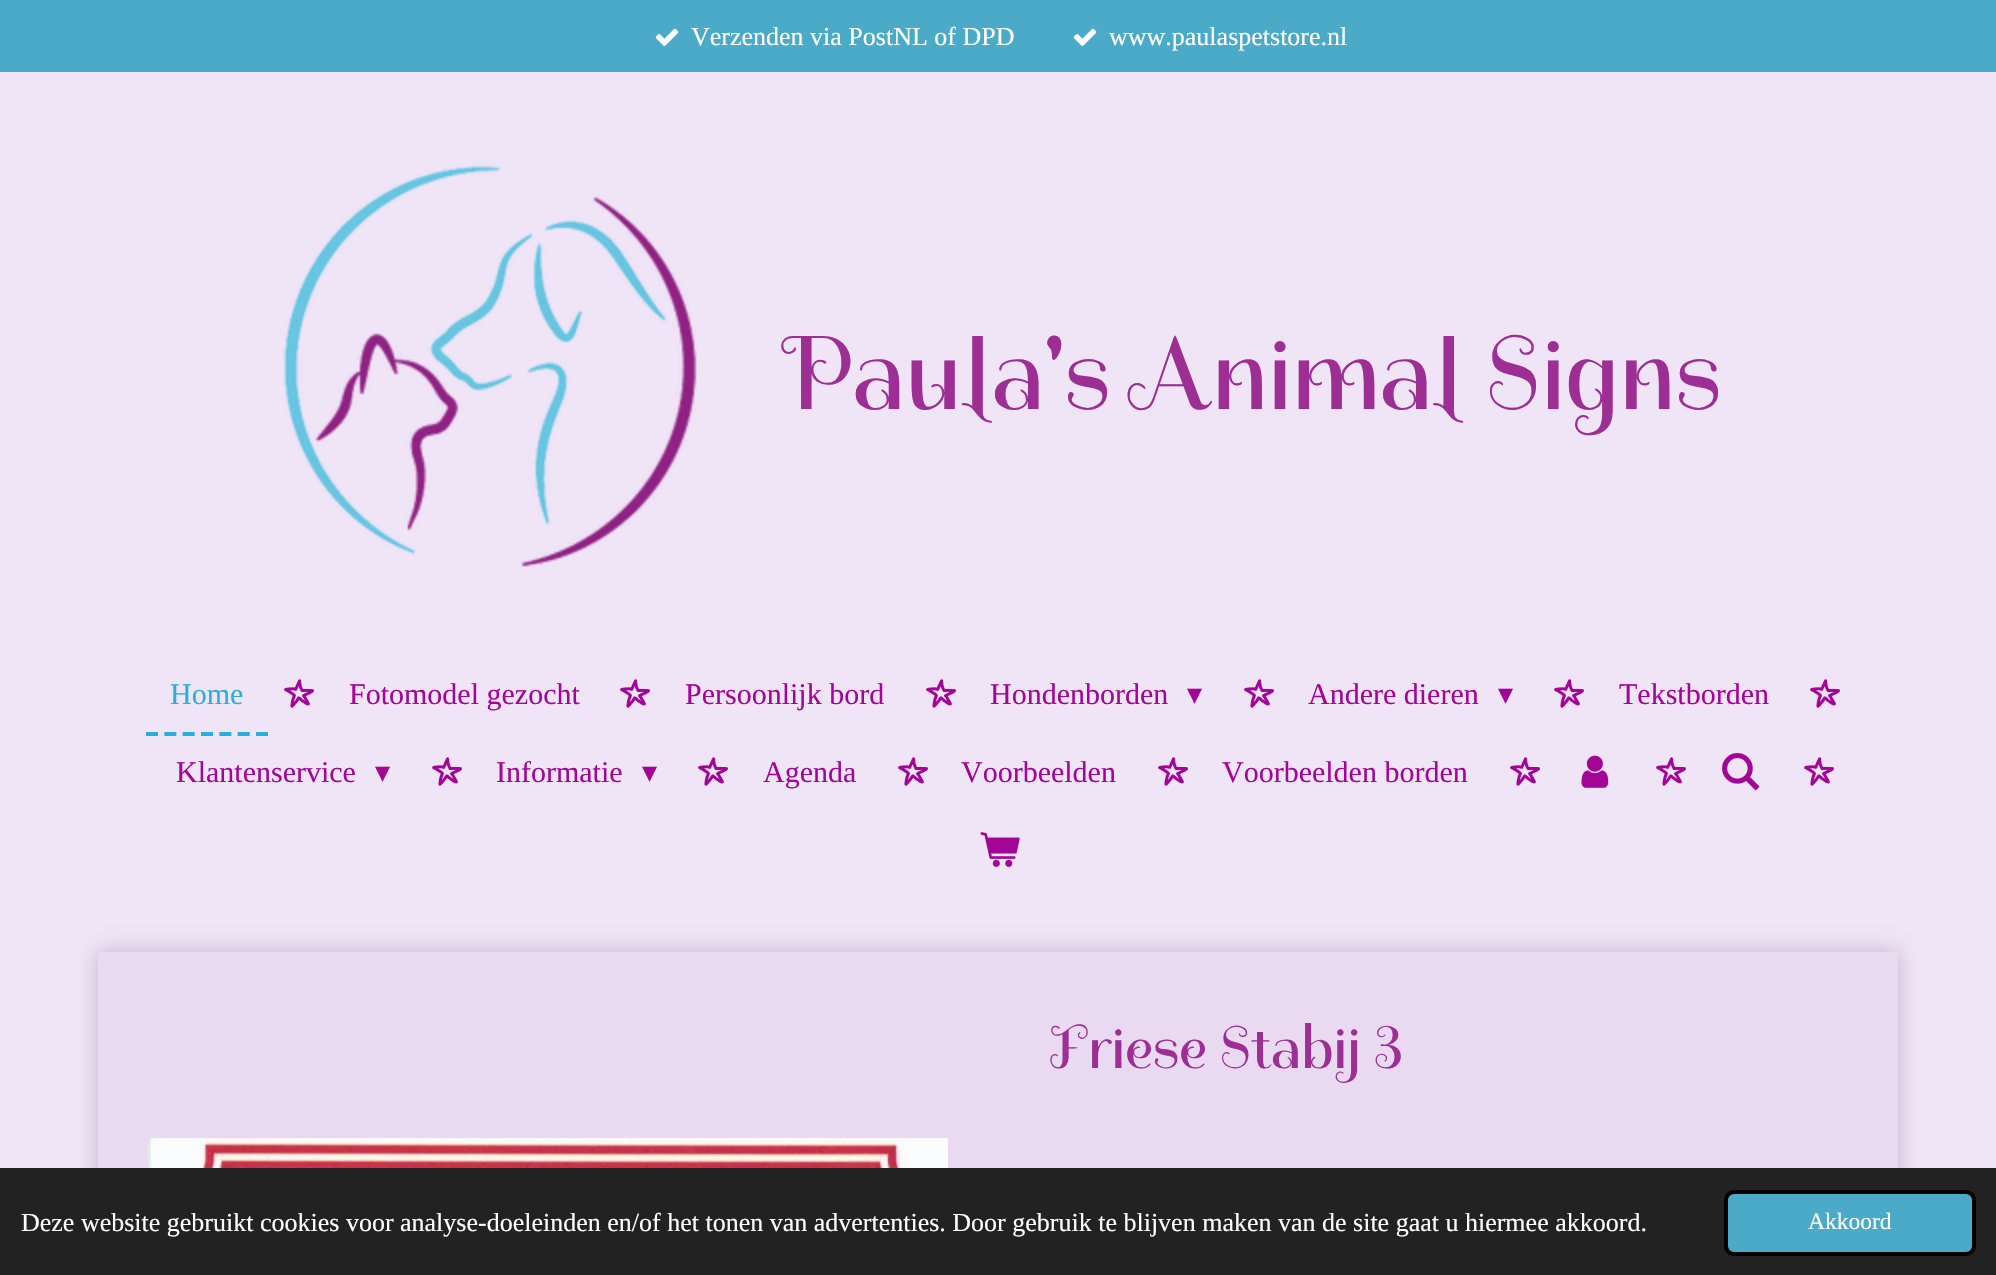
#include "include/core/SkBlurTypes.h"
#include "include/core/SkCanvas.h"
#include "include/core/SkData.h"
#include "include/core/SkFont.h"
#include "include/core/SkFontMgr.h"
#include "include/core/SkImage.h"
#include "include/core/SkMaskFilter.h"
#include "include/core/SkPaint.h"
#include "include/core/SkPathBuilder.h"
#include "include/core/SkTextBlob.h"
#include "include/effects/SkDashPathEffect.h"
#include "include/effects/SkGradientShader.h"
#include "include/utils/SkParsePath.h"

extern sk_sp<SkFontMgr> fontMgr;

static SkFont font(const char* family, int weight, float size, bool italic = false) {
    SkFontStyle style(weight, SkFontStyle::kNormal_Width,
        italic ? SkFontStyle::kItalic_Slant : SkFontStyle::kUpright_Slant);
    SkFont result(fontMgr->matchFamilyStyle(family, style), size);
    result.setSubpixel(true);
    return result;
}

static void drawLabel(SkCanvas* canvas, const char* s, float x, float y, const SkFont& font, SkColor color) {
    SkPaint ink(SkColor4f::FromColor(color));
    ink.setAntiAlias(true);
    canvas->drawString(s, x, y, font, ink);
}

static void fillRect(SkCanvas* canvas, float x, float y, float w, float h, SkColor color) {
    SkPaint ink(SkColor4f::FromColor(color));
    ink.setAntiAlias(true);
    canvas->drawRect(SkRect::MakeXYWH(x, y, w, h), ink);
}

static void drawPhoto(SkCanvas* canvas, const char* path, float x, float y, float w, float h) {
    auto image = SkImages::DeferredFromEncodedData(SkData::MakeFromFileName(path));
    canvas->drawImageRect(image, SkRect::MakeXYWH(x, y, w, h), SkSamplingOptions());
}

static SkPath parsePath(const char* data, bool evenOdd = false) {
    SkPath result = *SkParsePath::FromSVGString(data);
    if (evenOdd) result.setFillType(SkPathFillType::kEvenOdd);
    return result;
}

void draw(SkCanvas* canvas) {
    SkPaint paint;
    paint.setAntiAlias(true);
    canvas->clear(0xFFF0E4F7);
    fillRect(canvas, 0, 0, 1996, 72, 0xFF4CAAC9);
    drawPhoto(canvas, "assets/img1.png", 655, 28, 24, 18);
    SkFont font1 = font("Liberation Serif", 400, 26);
    drawLabel(canvas, "Verzenden via PostNL of DPD", 691, 45, font1, 0xFFFFFFFF);
    drawPhoto(canvas, "assets/img1.png", 1073, 28, 24, 18);
    drawLabel(canvas, "www.paulaspetstore.nl", 1109, 45, font1, 0xFFFFFFFF);
    drawPhoto(canvas, "assets/img2.png", 283, 165, 414, 402);
    SkFont font2 = font("Spirax", 400, 105);
    drawLabel(canvas, "Paula's Animal Signs", 784, 409, font2, 0xFF9D2F94);
    paint.setStroke(true);
    paint.setStrokeWidth(4);
    paint.setColor(0xFF28AFDB);
    paint.setPathEffect(SkDashPathEffect::Make({{12, 6.34f}}, 0));
    canvas->drawPath(parsePath("M146 734H268"), paint);
    paint.setPathEffect(nullptr);
    SkFont font3 = font("Liberation Serif", 400, 30);
    drawLabel(canvas, "Home", 170, 704, font3, 0xFF28AFDB);
    drawPhoto(canvas, "assets/img3.png", 284, 679, 30, 29);
    drawLabel(canvas, "Fotomodel gezocht", 349, 704, font3, 0xFFA30696);
    drawPhoto(canvas, "assets/img3.png", 620, 679, 30, 29);
    drawLabel(canvas, "Persoonlijk bord", 685, 704, font3, 0xFFA30696);
    drawPhoto(canvas, "assets/img3.png", 926, 679, 30, 29);
    drawLabel(canvas, "Hondenborden", 990, 704, font3, 0xFFA30696);
    SkFont font4 = font("DejaVu Sans", 400, 30);
    drawLabel(canvas, "▾", 1187, 704, font4, 0xFFA30696);
    drawPhoto(canvas, "assets/img3.png", 1244, 679, 30, 29);
    drawLabel(canvas, "Andere dieren", 1308, 704, font3, 0xFFA30696);
    drawLabel(canvas, "▾", 1498, 704, font4, 0xFFA30696);
    drawPhoto(canvas, "assets/img3.png", 1554, 679, 30, 29);
    drawLabel(canvas, "Tekstborden", 1619, 704, font3, 0xFFA30696);
    drawPhoto(canvas, "assets/img3.png", 1810, 679, 30, 29);
    drawLabel(canvas, "Klantenservice", 176, 782, font3, 0xFFA30696);
    drawLabel(canvas, "▾", 375, 782, font4, 0xFFA30696);
    drawPhoto(canvas, "assets/img3.png", 432, 757, 30, 29);
    drawLabel(canvas, "Informatie", 496, 782, font3, 0xFFA30696);
    drawLabel(canvas, "▾", 642, 782, font4, 0xFFA30696);
    drawPhoto(canvas, "assets/img3.png", 698, 757, 30, 29);
    drawLabel(canvas, "Agenda", 763, 782, font3, 0xFFA30696);
    drawPhoto(canvas, "assets/img3.png", 898, 757, 30, 29);
    drawLabel(canvas, "Voorbeelden", 961, 782, font3, 0xFFA30696);
    drawPhoto(canvas, "assets/img3.png", 1158, 757, 30, 29);
    drawLabel(canvas, "Voorbeelden borden", 1222, 782, font3, 0xFFA30696);
    drawPhoto(canvas, "assets/img3.png", 1510, 757, 30, 29);
    drawPhoto(canvas, "assets/img4.png", 1581, 755, 28, 33);
    drawPhoto(canvas, "assets/img3.png", 1656, 757, 30, 29);
    drawPhoto(canvas, "assets/img5.png", 1722, 753, 38, 38);
    drawPhoto(canvas, "assets/img3.png", 1804, 757, 30, 29);
    drawPhoto(canvas, "assets/img6.png", 980, 832, 40, 35);
    paint.setStroke(false);
    paint.setColor(0x33000000);
    paint.setMaskFilter(SkMaskFilter::MakeBlur(kNormal_SkBlurStyle, 10));
    canvas->drawRect(SkRect::MakeXYWH(98, 952, 1800, 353), paint);
    paint.setMaskFilter(nullptr);
    fillRect(canvas, 98, 952, 1800, 216, 0xFFE9DAF2);
    SkFont font5 = font("Spirax", 400, 60);
    drawLabel(canvas, "Friese Stabij 3", 1048, 1068, font5, 0xFF9D2F94);
    drawPhoto(canvas, "assets/img7.png", 148, 1138, 800, 30);
    fillRect(canvas, 0, 1168, 1996, 107, 0xFF222222);
    drawLabel(canvas, "Deze website gebruikt cookies voor analyse-doeleinden en/of het tonen van advertenties. Door gebruik te blijven maken van de site gaat u hiermee akkoord.", 21, 1231, font1, 0xFFFFFFFF);
    paint.setColor(0xFF4CAAC9);
    canvas->drawRoundRect(SkRect::MakeXYWH(1726, 1192, 248, 62), 8, 8, paint);
    paint.setStroke(true);
    paint.setColor(0xFF000000);
    canvas->drawRoundRect(SkRect::MakeXYWH(1726, 1192, 248, 62), 8, 8, paint);
    SkFont font6 = font("Liberation Serif", 400, 23.5f);
    drawLabel(canvas, "Akkoord", 1808, 1229, font6, 0xFFFFFFFF);
}
